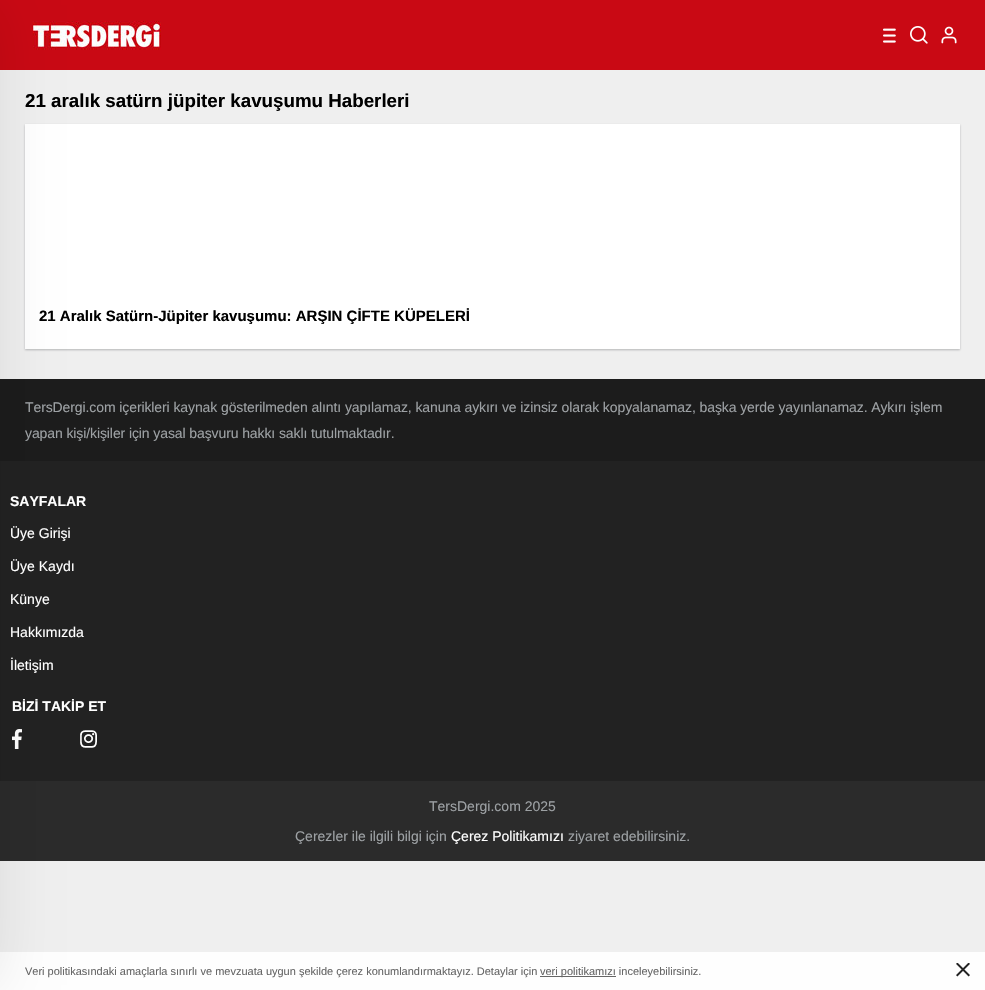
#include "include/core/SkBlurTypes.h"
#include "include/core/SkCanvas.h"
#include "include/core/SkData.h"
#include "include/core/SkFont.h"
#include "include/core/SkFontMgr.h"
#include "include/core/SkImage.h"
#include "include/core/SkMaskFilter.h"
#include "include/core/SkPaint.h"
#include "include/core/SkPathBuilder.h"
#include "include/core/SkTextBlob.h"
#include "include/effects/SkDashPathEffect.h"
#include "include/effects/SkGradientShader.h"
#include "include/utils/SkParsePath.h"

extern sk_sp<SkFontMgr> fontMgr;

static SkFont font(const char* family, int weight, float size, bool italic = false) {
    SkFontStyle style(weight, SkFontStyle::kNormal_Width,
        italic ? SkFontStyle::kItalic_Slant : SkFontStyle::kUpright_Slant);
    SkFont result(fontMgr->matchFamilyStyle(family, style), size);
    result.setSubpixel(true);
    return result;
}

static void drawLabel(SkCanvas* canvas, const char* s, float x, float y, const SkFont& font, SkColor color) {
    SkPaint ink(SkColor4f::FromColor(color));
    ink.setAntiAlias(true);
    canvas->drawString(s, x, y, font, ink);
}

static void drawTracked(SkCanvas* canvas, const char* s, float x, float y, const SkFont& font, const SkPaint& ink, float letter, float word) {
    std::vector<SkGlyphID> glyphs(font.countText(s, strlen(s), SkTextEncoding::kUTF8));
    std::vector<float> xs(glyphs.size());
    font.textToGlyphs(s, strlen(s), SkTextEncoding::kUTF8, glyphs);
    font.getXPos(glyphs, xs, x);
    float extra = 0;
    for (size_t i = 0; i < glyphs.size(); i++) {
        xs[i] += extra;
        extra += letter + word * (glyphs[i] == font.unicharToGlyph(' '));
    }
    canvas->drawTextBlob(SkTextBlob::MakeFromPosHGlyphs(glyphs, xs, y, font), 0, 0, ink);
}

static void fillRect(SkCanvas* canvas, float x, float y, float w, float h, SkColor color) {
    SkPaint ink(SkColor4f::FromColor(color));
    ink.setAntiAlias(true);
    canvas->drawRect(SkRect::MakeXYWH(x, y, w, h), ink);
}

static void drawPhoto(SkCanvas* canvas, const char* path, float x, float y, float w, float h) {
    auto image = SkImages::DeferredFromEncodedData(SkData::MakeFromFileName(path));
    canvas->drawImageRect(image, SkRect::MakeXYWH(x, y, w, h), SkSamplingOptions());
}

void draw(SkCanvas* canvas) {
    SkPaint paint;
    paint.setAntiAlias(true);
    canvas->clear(0xFFEFEFEF);
    fillRect(canvas, 0, 0, 985, 70, 0xFFC90914);
    drawPhoto(canvas, "assets/img1.png", 32, 21, 129, 29);
    drawPhoto(canvas, "assets/img2.png", 883, 28, 13, 15);
    drawPhoto(canvas, "assets/img3.png", 910, 26, 18, 18);
    drawPhoto(canvas, "assets/img4.png", 941, 26, 16, 18);
    paint.setColor(0x45111519);
    paint.setMaskFilter(SkMaskFilter::MakeBlur(kNormal_SkBlurStyle, 1));
    canvas->drawRect(SkRect::MakeXYWH(25, 125, 935, 225), paint);
    paint.setMaskFilter(nullptr);
    fillRect(canvas, 25, 124, 935, 225, 0xFFFFFFFF);
    fillRect(canvas, 0, 461, 985, 320, 0xFF222222);
    fillRect(canvas, 0, 379, 985, 82, 0xFF1C1C1C);
    drawPhoto(canvas, "assets/img5.png", 12, 729, 10, 20);
    drawPhoto(canvas, "assets/img6.png", 80, 730, 17, 18);
    fillRect(canvas, 0, 781, 985, 80, 0xFF2B2B2B);
    fillRect(canvas, 0, 952, 985, 38, 0xFFFEFEFE);
    paint.setColor(0x1A000000);
    paint.setMaskFilter(SkMaskFilter::MakeBlur(kNormal_SkBlurStyle, 30));
    canvas->drawRect(SkRect::MakeXYWH(-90, 5, 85, 980), paint);
    paint.setMaskFilter(nullptr);
    SkFont font1 = font("Liberation Sans", 700, 18.75f);
    drawLabel(canvas, "21 aralık satürn jüpiter kavuşumu Haberleri", 25, 107, font1, 0xFF000000);
    SkFont font2 = font("Liberation Sans", 700, 15);
    drawLabel(canvas, "21 Aralık Satürn-Jüpiter kavuşumu: ARŞIN ÇİFTE KÜPELERİ", 39, 321, font2, 0xFF000000);
    SkFont font3 = font("Liberation Sans", 400, 14);
    paint.setColor(0xFF9DA1A4);
    drawTracked(canvas, "TersDergi.com içerikleri kaynak gösterilmeden alıntı yapılamaz, kanuna aykırı ve izinsiz olarak kopyalanamaz, başka yerde yayınlanamaz. Aykırı işlem", 25, 412, font3, paint, -0.1f, 0);
    drawTracked(canvas, "yapan kişi/kişiler için yasal başvuru hakkı saklı tutulmaktadır.", 25, 438, font3, paint, -0.1f, 0);
    SkFont font4 = font("Liberation Sans", 700, 14);
    drawLabel(canvas, "SAYFALAR", 10, 506, font4, 0xFFFFFFFF);
    drawLabel(canvas, "Üye Girişi", 10, 538, font3, 0xFFFFFFFF);
    drawLabel(canvas, "Üye Kaydı", 10, 571, font3, 0xFFFFFFFF);
    drawLabel(canvas, "Künye", 10, 604, font3, 0xFFFFFFFF);
    drawLabel(canvas, "Hakkımızda", 10, 637, font3, 0xFFFFFFFF);
    drawLabel(canvas, "İletişim", 10, 670, font3, 0xFFFFFFFF);
    drawLabel(canvas, "BİZİ TAKİP ET", 12, 711, font4, 0xFFFFFFFF);
    drawLabel(canvas, "TersDergi.com 2025", 429, 811, font3, 0xFF9DA1A4);
    drawLabel(canvas, "Çerezler ile ilgili bilgi için", 295, 841, font3, 0xFF9DA1A4);
    drawLabel(canvas, "Çerez Politikamızı", 451, 841, font3, 0xFFFFFFFF);
    drawLabel(canvas, "ziyaret edebilirsiniz.", 568, 841, font3, 0xFF9DA1A4);
    SkFont font5 = font("Liberation Sans", 400, 11);
    drawLabel(canvas, "Veri politikasındaki amaçlarla sınırlı ve mevzuata uygun şekilde çerez konumlandırmaktayız. Detaylar için", 25, 975, font5, 0xFF666666);
    fillRect(canvas, 540, 976, 76, 1, 0xFF666666);
    drawLabel(canvas, "veri politikamızı inceleyebilirsiniz.", 540, 975, font5, 0xFF666666);
    drawPhoto(canvas, "assets/img7.png", 956, 963, 14, 14);
}
